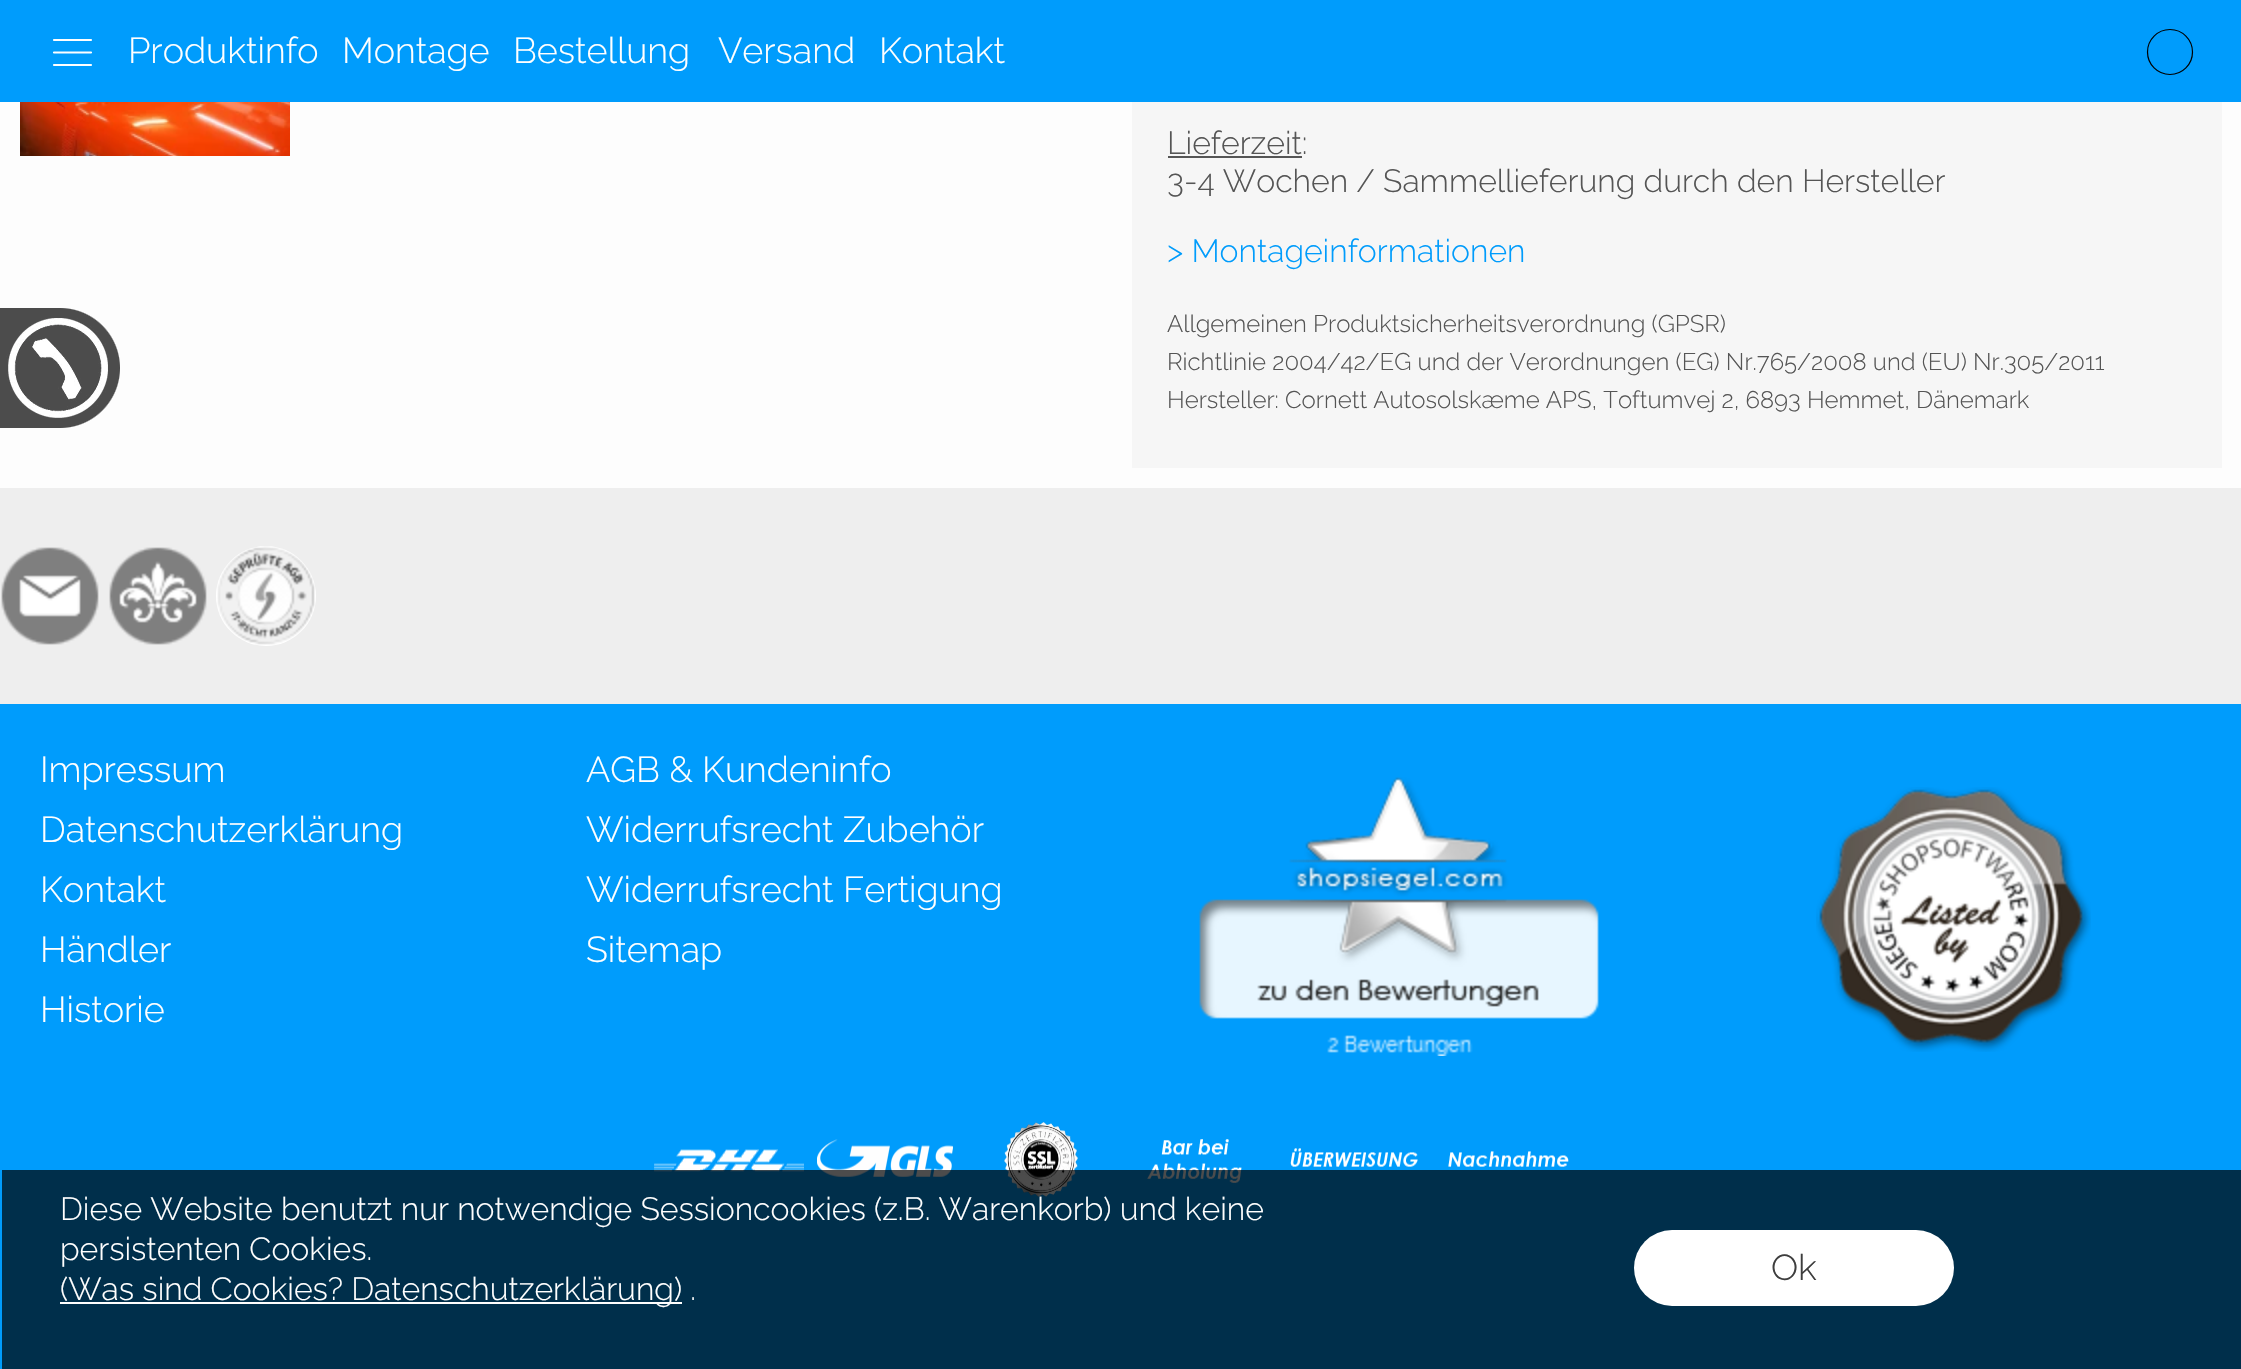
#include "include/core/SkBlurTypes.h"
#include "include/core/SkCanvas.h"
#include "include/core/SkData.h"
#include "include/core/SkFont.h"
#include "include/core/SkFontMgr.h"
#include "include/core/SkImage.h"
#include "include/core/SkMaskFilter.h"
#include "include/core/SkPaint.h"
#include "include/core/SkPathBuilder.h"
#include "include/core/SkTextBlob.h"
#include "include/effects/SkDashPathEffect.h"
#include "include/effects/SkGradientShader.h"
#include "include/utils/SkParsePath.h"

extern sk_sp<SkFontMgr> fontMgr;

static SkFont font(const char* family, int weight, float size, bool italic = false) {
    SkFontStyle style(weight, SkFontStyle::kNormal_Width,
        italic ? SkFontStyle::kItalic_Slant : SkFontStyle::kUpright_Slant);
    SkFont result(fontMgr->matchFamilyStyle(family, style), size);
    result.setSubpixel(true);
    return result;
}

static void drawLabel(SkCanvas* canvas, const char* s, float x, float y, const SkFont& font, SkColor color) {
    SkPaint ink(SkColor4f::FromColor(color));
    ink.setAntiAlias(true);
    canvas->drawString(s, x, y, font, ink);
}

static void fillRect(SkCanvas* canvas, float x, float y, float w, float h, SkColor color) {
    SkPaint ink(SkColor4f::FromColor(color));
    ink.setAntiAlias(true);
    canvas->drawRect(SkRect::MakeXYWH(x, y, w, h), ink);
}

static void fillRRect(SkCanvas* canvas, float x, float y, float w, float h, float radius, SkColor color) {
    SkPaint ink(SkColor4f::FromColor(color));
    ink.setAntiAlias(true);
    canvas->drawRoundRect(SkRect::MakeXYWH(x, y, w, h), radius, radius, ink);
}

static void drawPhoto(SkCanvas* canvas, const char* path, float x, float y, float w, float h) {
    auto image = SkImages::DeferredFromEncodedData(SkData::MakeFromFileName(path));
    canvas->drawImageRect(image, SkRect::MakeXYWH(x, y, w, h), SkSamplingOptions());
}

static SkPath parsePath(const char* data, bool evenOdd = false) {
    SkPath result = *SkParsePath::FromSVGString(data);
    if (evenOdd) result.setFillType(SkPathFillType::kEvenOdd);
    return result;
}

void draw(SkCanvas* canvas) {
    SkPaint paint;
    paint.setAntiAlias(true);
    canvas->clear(0xFFEEEEEE);
    fillRect(canvas, 0, 0, 2241, 102, 0xFF009CFC);
    paint.setStroke(true);
    paint.setStrokeWidth(2.2f);
    paint.setStrokeCap(SkPaint::kRound_Cap);
    paint.setColor(0xFFFFFFFF);
    canvas->drawPath(parsePath("M54 65H91M54 52.5H91M54 40H91"), paint);
    SkFont font1 = font("Raleway", 300, 36);
    drawLabel(canvas, "Produktinfo", 128, 63, font1, 0xFFFFFFFF);
    drawLabel(canvas, "Montage", 342, 63, font1, 0xFFFFFFFF);
    drawLabel(canvas, "Bestellung   Versand", 513, 63, font1, 0xFFFFFFFF);
    drawLabel(canvas, "Kontakt", 879, 63, font1, 0xFFFFFFFF);
    paint.setStrokeWidth(1.2f);
    paint.setStrokeCap(SkPaint::kButt_Cap);
    paint.setColor(0xFF000000);
    canvas->drawCircle(2170, 52, 22.5f, paint);
    fillRect(canvas, 0, 102, 2241, 386, 0xFFFDFDFD);
    drawPhoto(canvas, "assets/img1.png", 20, 102, 270, 54);
    fillRect(canvas, 1132, 102, 1090, 366, 0xFFF6F6F6);
    SkFont font2 = font("Raleway", 300, 32);
    drawLabel(canvas, "Lieferzeit:", 1167, 154, font2, 0xFF555555);
    fillRect(canvas, 1168, 156, 134, 2, 0xFF555555);
    drawLabel(canvas, "3-4 Wochen / Sammellieferung durch den Hersteller", 1167, 192, font2, 0xFF555555);
    drawLabel(canvas, "> Montageinformationen", 1167, 262, font2, 0xFF009CFC);
    SkFont font3 = font("Raleway", 300, 24);
    drawLabel(canvas, "Allgemeinen Produktsicherheitsverordnung (GPSR)", 1167, 332, font3, 0xFF555555);
    drawLabel(canvas, "Richtlinie 2004/42/EG und der Verordnungen (EG) Nr.765/2008 und (EU) Nr.305/2011", 1167, 370, font3, 0xFF555555);
    drawLabel(canvas, "Hersteller: Cornett Autosolskæme APS, Toftumvej 2, 6893 Hemmet, Dänemark", 1167, 408, font3, 0xFF555555);
    drawPhoto(canvas, "assets/img2.png", 1, 547, 98, 98);
    drawPhoto(canvas, "assets/img3.png", 109, 547, 98, 98);
    drawPhoto(canvas, "assets/img4.png", 216, 546, 100, 100);
    fillRect(canvas, 0, 704, 2241, 665, 0xFF009CFC);
    drawLabel(canvas, "Impressum", 40, 782, font1, 0xFFFFFFFF);
    drawLabel(canvas, "Datenschutzerklärung", 40, 842, font1, 0xFFFFFFFF);
    drawLabel(canvas, "Kontakt", 40, 902, font1, 0xFFFFFFFF);
    drawLabel(canvas, "Händler", 40, 962, font1, 0xFFFFFFFF);
    drawLabel(canvas, "Historie", 40, 1022, font1, 0xFFFFFFFF);
    drawLabel(canvas, "AGB & Kundeninfo", 586, 782, font1, 0xFFFFFFFF);
    drawLabel(canvas, "Widerrufsrecht Zubehör", 586, 842, font1, 0xFFFFFFFF);
    drawLabel(canvas, "Widerrufsrecht Fertigung", 586, 902, font1, 0xFFFFFFFF);
    drawLabel(canvas, "Sitemap", 586, 962, font1, 0xFFFFFFFF);
    drawPhoto(canvas, "assets/img5.png", 1199, 777, 400, 279);
    drawPhoto(canvas, "assets/img6.png", 1816, 787, 275, 265);
    drawPhoto(canvas, "assets/img7.png", 654, 1149, 150, 23);
    drawPhoto(canvas, "assets/img8.png", 817, 1139, 136, 38);
    drawPhoto(canvas, "assets/img9.png", 1004, 1122, 74, 75);
    drawPhoto(canvas, "assets/img10.png", 1147, 1139, 95, 44);
    drawPhoto(canvas, "assets/img11.png", 1290, 1148, 128, 19);
    drawPhoto(canvas, "assets/img12.png", 1448, 1151, 121, 16);
    drawPhoto(canvas, "assets/img13.png", 0, 308, 120, 120);
    fillRect(canvas, 2, 1170, 2239, 199, 0xB3000000);
    drawLabel(canvas, "Diese Website benutzt nur notwendige Sessioncookies (z.B. Warenkorb) und keine", 60, 1220, font2, 0xFFFFFFFF);
    drawLabel(canvas, "persistenten Cookies.", 60, 1260, font2, 0xFFFFFFFF);
    fillRect(canvas, 60, 1302, 622, 2, 0xFFFFFFFF);
    drawLabel(canvas, "(Was sind Cookies? Datenschutzerklärung) .", 60, 1300, font2, 0xFFFFFFFF);
    fillRRect(canvas, 1634, 1230, 320, 76, 38, 0xFFFFFFFF);
    drawLabel(canvas, "Ok", 1771, 1280, font1, 0xFF3E3E3E);
}
